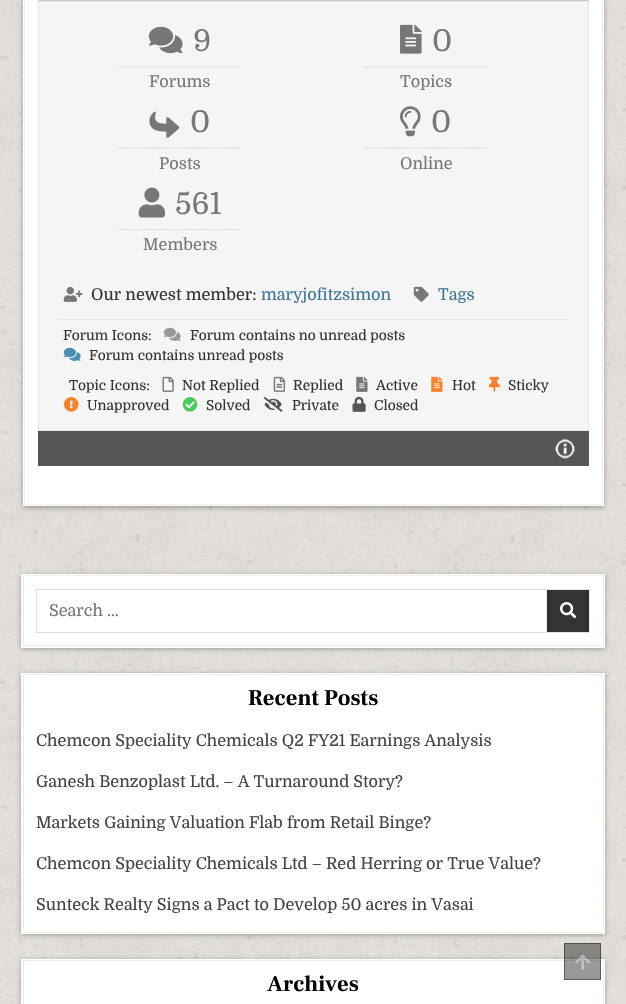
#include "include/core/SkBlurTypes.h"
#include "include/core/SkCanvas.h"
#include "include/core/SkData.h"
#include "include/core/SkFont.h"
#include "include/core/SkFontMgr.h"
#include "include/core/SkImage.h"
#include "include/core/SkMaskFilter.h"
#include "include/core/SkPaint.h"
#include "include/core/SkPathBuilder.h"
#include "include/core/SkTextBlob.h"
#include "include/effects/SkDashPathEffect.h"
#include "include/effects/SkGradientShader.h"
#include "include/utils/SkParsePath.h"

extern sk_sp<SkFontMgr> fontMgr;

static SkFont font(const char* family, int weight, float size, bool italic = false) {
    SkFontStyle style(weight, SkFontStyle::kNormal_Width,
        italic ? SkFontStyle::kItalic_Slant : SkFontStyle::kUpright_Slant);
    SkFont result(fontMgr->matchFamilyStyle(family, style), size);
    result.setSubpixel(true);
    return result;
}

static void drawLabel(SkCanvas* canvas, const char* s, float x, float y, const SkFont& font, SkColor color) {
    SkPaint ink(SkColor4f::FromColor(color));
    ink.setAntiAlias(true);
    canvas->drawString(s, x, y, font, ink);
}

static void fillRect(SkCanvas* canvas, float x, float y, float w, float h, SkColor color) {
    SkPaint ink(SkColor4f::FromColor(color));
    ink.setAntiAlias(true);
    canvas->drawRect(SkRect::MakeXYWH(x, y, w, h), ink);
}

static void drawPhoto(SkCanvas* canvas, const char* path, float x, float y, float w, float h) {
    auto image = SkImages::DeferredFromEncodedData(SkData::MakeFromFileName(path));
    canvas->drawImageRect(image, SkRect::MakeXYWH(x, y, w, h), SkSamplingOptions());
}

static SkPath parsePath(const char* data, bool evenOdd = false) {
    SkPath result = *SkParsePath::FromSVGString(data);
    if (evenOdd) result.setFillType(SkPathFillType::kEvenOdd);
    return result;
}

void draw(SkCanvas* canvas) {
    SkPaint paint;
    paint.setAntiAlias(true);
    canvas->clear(0xFFFFFFFF);
    drawPhoto(canvas, "assets/img1.png", 0, 0, 626, 1004);
    paint.setColor(0x4D000000);
    paint.setMaskFilter(SkMaskFilter::MakeBlur(kNormal_SkBlurStyle, 2.5f));
    canvas->drawRect(SkRect::MakeXYWH(23, -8, 581, 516), paint);
    paint.setMaskFilter(nullptr);
    fillRect(canvas, 23, 0, 581, 506, 0xFFFFFFFF);
    paint.setStroke(true);
    paint.setStrokeWidth(1);
    paint.setColor(0xFFEFEFEF);
    canvas->drawRect(SkRect::MakeXYWH(24.5f, -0.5f, 578, 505), paint);
    fillRect(canvas, 38, 0, 551, 1, 0xFFCCCCCC);
    paint.setStroke(false);
    paint.setColor(0xFFF5F5F5);
    canvas->drawRect(SkRect::MakeXYWH(38.5f, 1.5f, 550, 429), paint);
    paint.setStroke(true);
    paint.setColor(0xFFE6E6E6);
    canvas->drawRect(SkRect::MakeXYWH(38.5f, 1.5f, 550, 429), paint);
    drawPhoto(canvas, "assets/img2.png", 148, 26, 35, 28);
    SkFont font1 = font("Domine", 400, 30);
    drawLabel(canvas, "9", 193, 51, font1, 0xFF777777);
    paint.setStrokeWidth(1.2f);
    paint.setColor(0xFFCCCCCC);
    paint.setPathEffect(SkDashPathEffect::Make({{1.25f, 1.25f}}, 0));
    canvas->drawPath(parsePath("M119 67H241"), paint);
    paint.setPathEffect(nullptr);
    SkFont font2 = font("Domine", 400, 16.25f);
    drawLabel(canvas, "Forums", 149, 87, font2, 0xFF777777);
    drawPhoto(canvas, "assets/img3.png", 400, 24, 22, 30);
    drawLabel(canvas, "0", 432, 51, font1, 0xFF777777);
    paint.setPathEffect(SkDashPathEffect::Make({{1.25f, 1.25f}}, 0));
    canvas->drawPath(parsePath("M364 67H487.5"), paint);
    paint.setPathEffect(nullptr);
    drawLabel(canvas, "Topics", 400, 87, font2, 0xFF777777);
    drawPhoto(canvas, "assets/img4.png", 149, 111, 31, 27);
    drawLabel(canvas, "0", 190, 132, font1, 0xFF777777);
    paint.setPathEffect(SkDashPathEffect::Make({{1.25f, 1.25f}}, 0));
    canvas->drawPath(parsePath("M119 148H241"), paint);
    paint.setPathEffect(nullptr);
    drawLabel(canvas, "Posts", 159, 169, font2, 0xFF777777);
    drawPhoto(canvas, "assets/img5.png", 400, 106, 21, 31);
    drawLabel(canvas, "0", 431, 132, font1, 0xFF777777);
    paint.setPathEffect(SkDashPathEffect::Make({{1.25f, 1.25f}}, 0));
    canvas->drawPath(parsePath("M364 148H487.5"), paint);
    paint.setPathEffect(nullptr);
    drawLabel(canvas, "Online", 400, 169, font2, 0xFF777777);
    drawPhoto(canvas, "assets/img6.png", 138, 187, 27, 31);
    drawLabel(canvas, "561", 175, 214, font1, 0xFF777777);
    paint.setPathEffect(SkDashPathEffect::Make({{1.25f, 1.25f}}, 0));
    canvas->drawPath(parsePath("M119 229.5H241"), paint);
    paint.setPathEffect(nullptr);
    drawLabel(canvas, "Members", 143, 250, font2, 0xFF777777);
    drawPhoto(canvas, "assets/img7.png", 63, 286, 20, 16);
    drawLabel(canvas, "Our newest member:", 91, 300, font2, 0xFF333333);
    drawLabel(canvas, "maryjofitzsimon", 261, 300, font2, 0xFF3F7796);
    drawPhoto(canvas, "assets/img8.png", 413, 286, 16, 16);
    drawLabel(canvas, "Tags", 438, 300, font2, 0xFF3F7796);
    fillRect(canvas, 58, 319, 511, 1, 0xFFE6E6E6);
    SkFont font3 = font("Domine", 400, 13.75f);
    drawLabel(canvas, "Forum Icons:", 63, 340, font3, 0xFF333333);
    drawPhoto(canvas, "assets/img9.png", 163, 327, 18, 14);
    drawLabel(canvas, "Forum contains no unread posts", 190, 340, font3, 0xFF333333);
    drawPhoto(canvas, "assets/img10.png", 63, 347, 18, 14);
    drawLabel(canvas, "Forum contains unread posts", 89, 360, font3, 0xFF333333);
    drawLabel(canvas, "Topic Icons:", 69, 390, font3, 0xFF333333);
    drawPhoto(canvas, "assets/img11.png", 162, 376, 12, 16);
    drawLabel(canvas, "Not Replied", 182, 390, font3, 0xFF333333);
    drawPhoto(canvas, "assets/img12.png", 273, 376, 12, 16);
    drawLabel(canvas, "Replied", 293, 390, font3, 0xFF333333);
    drawPhoto(canvas, "assets/img13.png", 356, 376, 12, 16);
    drawLabel(canvas, "Active", 376, 390, font3, 0xFF333333);
    drawPhoto(canvas, "assets/img14.png", 431, 376, 12, 16);
    drawLabel(canvas, "Hot", 452, 390, font3, 0xFF333333);
    drawPhoto(canvas, "assets/img15.png", 488, 376, 12, 16);
    drawLabel(canvas, "Sticky", 508, 390, font3, 0xFF333333);
    drawPhoto(canvas, "assets/img16.png", 64, 397, 15, 15);
    drawLabel(canvas, "Unapproved", 87, 410, font3, 0xFF333333);
    drawPhoto(canvas, "assets/img17.png", 182, 397, 16, 15);
    drawLabel(canvas, "Solved", 206, 410, font3, 0xFF333333);
    drawPhoto(canvas, "assets/img18.png", 263, 396, 20, 16);
    drawLabel(canvas, "Private", 292, 410, font3, 0xFF333333);
    drawPhoto(canvas, "assets/img19.png", 352, 396, 14, 16);
    drawLabel(canvas, "Closed", 374, 410, font3, 0xFF333333);
    fillRect(canvas, 38, 431, 551, 35, 0xFF555555);
    drawPhoto(canvas, "assets/img20.png", 555, 438, 20, 21);
    paint.setStroke(false);
    paint.setColor(0x4D000000);
    paint.setMaskFilter(SkMaskFilter::MakeBlur(kNormal_SkBlurStyle, 2.5f));
    canvas->drawRect(SkRect::MakeXYWH(21, 575, 584, 74), paint);
    paint.setMaskFilter(nullptr);
    fillRect(canvas, 21, 574, 584, 74, 0xFFFFFFFF);
    paint.setStroke(true);
    paint.setStrokeWidth(1);
    paint.setColor(0xFFEFEFEF);
    canvas->drawRect(SkRect::MakeXYWH(23.5f, 575.5f, 580, 70), paint);
    paint.setColor(0xFFDDDDDD);
    canvas->drawRect(SkRect::MakeXYWH(36.5f, 589.5f, 553, 43), paint);
    drawLabel(canvas, "Search …", 49, 616, font2, 0xFF777777);
    paint.setStroke(false);
    paint.setColor(0xFF333333);
    canvas->drawRect(SkRect::MakeXYWH(546.5f, 589.5f, 43, 43), paint);
    paint.setStroke(true);
    paint.setColor(0xFFE6E6E6);
    canvas->drawRect(SkRect::MakeXYWH(546.5f, 589.5f, 43, 43), paint);
    drawPhoto(canvas, "assets/img21.png", 560, 602, 17, 17);
    paint.setStroke(false);
    paint.setColor(0x4D000000);
    paint.setMaskFilter(SkMaskFilter::MakeBlur(kNormal_SkBlurStyle, 2.5f));
    canvas->drawRect(SkRect::MakeXYWH(21, 674, 584, 261), paint);
    paint.setMaskFilter(nullptr);
    fillRect(canvas, 21, 673, 584, 261, 0xFFFFFFFF);
    paint.setStroke(true);
    paint.setColor(0xFFEFEFEF);
    canvas->drawRect(SkRect::MakeXYWH(23.5f, 674.5f, 580, 258), paint);
    SkFont font4 = font("Frank Ruhl Libre", 700, 22.5f);
    drawLabel(canvas, "Recent Posts", 248, 705, font4, 0xFF000000);
    drawLabel(canvas, "Chemcon Speciality Chemicals Q2 FY21 Earnings Analysis", 36, 746, font2, 0xFF444444);
    drawLabel(canvas, "Ganesh Benzoplast Ltd. – A Turnaround Story?", 36, 787, font2, 0xFF444444);
    drawLabel(canvas, "Markets Gaining Valuation Flab from Retail Binge?", 36, 828, font2, 0xFF444444);
    drawLabel(canvas, "Chemcon Speciality Chemicals Ltd – Red Herring or True Value?", 36, 869, font2, 0xFF444444);
    drawLabel(canvas, "Sunteck Realty Signs a Pact to Develop 50 acres in Vasai", 36, 910, font2, 0xFF444444);
    paint.setStroke(false);
    paint.setColor(0x4D000000);
    paint.setMaskFilter(SkMaskFilter::MakeBlur(kNormal_SkBlurStyle, 2.5f));
    canvas->drawRect(SkRect::MakeXYWH(21, 960, 584, 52), paint);
    paint.setMaskFilter(nullptr);
    fillRect(canvas, 21, 959, 584, 45, 0xFFFFFFFF);
    paint.setStroke(true);
    paint.setColor(0xFFEFEFEF);
    canvas->drawRect(SkRect::MakeXYWH(23.5f, 960.5f, 580, 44), paint);
    drawLabel(canvas, "Archives", 267, 991, font4, 0xFF000000);
    fillRect(canvas, 564, 943, 37, 37, 0x66000000);
    paint.setColor(0x66000000);
    canvas->drawRect(SkRect::MakeXYWH(564.5f, 943.5f, 36, 36), paint);
    drawPhoto(canvas, "assets/img22.png", 575, 954, 15, 16);
}
